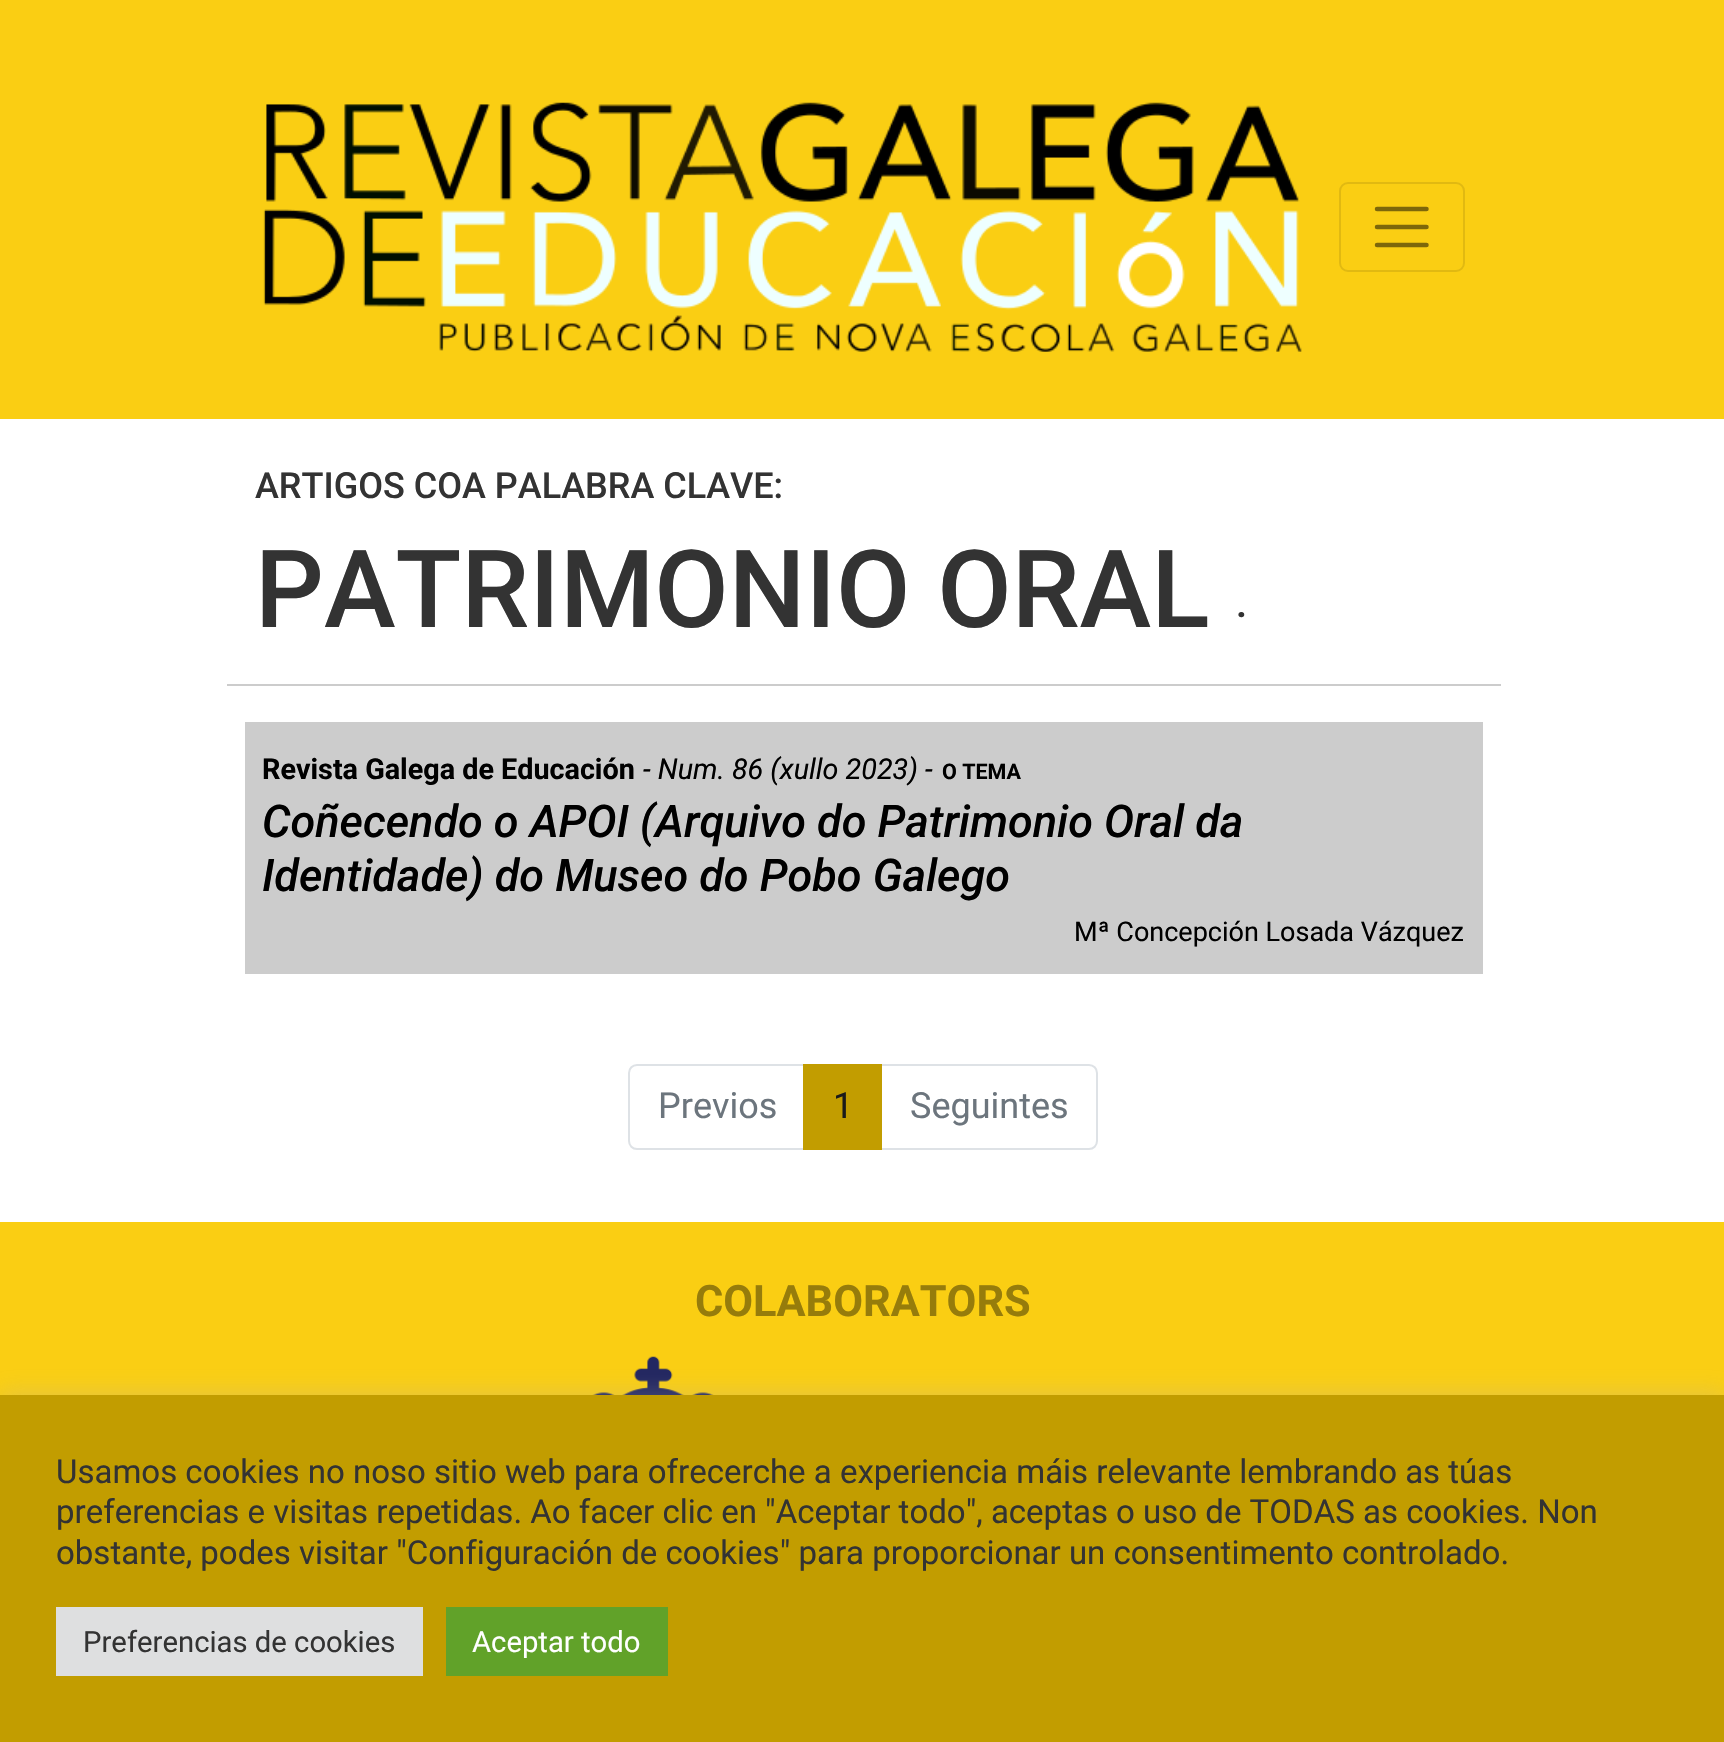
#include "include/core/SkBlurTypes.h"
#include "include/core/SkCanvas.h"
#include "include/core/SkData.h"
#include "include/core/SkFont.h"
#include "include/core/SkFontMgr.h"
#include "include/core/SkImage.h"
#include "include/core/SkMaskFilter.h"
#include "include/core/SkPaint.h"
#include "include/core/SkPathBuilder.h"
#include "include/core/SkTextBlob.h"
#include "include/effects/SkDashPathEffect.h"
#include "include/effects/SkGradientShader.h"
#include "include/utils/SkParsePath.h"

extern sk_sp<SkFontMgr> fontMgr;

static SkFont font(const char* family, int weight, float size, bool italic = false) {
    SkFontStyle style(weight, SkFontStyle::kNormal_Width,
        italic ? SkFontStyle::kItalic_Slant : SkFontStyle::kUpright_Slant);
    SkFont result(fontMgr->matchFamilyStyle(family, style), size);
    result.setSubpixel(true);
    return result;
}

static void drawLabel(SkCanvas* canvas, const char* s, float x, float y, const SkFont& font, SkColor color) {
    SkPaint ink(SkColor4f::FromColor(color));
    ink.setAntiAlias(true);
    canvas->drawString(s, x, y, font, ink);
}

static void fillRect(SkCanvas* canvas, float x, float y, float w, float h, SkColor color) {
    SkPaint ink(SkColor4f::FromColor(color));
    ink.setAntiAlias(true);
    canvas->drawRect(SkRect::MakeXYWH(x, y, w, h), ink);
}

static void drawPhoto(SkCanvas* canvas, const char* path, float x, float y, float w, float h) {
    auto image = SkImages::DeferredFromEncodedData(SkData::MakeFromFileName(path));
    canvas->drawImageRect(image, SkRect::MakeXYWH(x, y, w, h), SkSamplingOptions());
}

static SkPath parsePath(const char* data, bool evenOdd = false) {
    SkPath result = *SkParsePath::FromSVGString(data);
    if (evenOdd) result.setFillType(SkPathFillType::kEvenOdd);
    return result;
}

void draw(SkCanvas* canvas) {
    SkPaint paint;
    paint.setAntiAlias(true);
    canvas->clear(0xFFFFFFFF);
    fillRect(canvas, 0, 0, 1724, 419, 0xFFFACE13);
    drawPhoto(canvas, "assets/img1.png", 263, 102, 1039, 250);
    paint.setStroke(true);
    paint.setStrokeWidth(2);
    paint.setColor(0xFFE1B911);
    canvas->drawRoundRect(SkRect::MakeXYWH(1340, 183, 124, 88), 8, 8, paint);
    paint.setStrokeWidth(4.5f);
    paint.setStrokeCap(SkPaint::kRound_Cap);
    paint.setColor(0xFF7D670A);
    canvas->drawPath(parsePath("M1377 209H1426.5M1377 227H1426.5M1377 245H1426.5"), paint);
    fillRect(canvas, 227, 684, 1274, 2, 0xFFCCCCCC);
    SkFont font1 = font("Roboto", 500, 36);
    drawLabel(canvas, "ARTIGOS COA PALABRA CLAVE:", 255, 498, font1, 0xFF333333);
    SkFont font2 = font("Roboto", 500, 108);
    drawLabel(canvas, "PATRIMONIO ORAL", 255, 627, font2, 0xFF333333);
    SkFont font3 = font("Roboto", 700, 36);
    drawLabel(canvas, "·", 1236, 627, font3, 0xFF333333);
    fillRect(canvas, 245, 722, 1238, 252, 0xFFCCCCCC);
    SkFont font4 = font("Roboto", 700, 28.75f);
    drawLabel(canvas, "Revista Galega de Educación", 262, 779, font4, 0xFF000000);
    SkFont font5 = font("Roboto", 400, 28.75f, true);
    drawLabel(canvas, "- Num. 86 (xullo 2023) -", 643, 779, font5, 0xFF000000);
    SkFont font6 = font("Roboto", 700, 21.5f);
    drawLabel(canvas, "O TEMA", 942, 779, font6, 0xFF000000);
    SkFont font7 = font("Roboto", 500, 45, true);
    drawLabel(canvas, "Coñecendo o APOI (Arquivo do Patrimonio Oral da", 262, 837, font7, 0xFF000000);
    drawLabel(canvas, "Identidade) do Museo do Pobo Galego", 262, 891, font7, 0xFF000000);
    SkFont font8 = font("Roboto", 400, 27);
    drawLabel(canvas, "Mª Concepción Losada Vázquez", 1074, 941, font8, 0xFF000000);
    paint.setStrokeWidth(2);
    paint.setStrokeCap(SkPaint::kButt_Cap);
    paint.setColor(0xFFDEE2E6);
    canvas->drawPath(parsePath("M637 1065H805V1149H637C632.5 1149 629 1145.5 629 1141V1073C629 1068.5 632.5 1065 637 1065Z"), paint);
    SkFont font9 = font("Roboto", 400, 36);
    drawLabel(canvas, "Previos", 658, 1118, font9, 0xFF6C757D);
    canvas->drawPath(parsePath("M881 1065H1089C1093.5 1065 1097 1068.5 1097 1073V1141C1097 1145.5 1093.5 1149 1089 1149H881Z"), paint);
    fillRect(canvas, 803, 1064, 79, 86, 0xFFC29D00);
    drawLabel(canvas, "1", 833, 1118, font9, 0xFF1A1A1A);
    drawLabel(canvas, "Seguintes", 910, 1118, font9, 0xFF6C757D);
    fillRect(canvas, 0, 1222, 1724, 173, 0xFFFACE13);
    SkFont font10 = font("Roboto", 700, 43.25f);
    drawLabel(canvas, "COLABORATORS", 695, 1316, font10, 0xFF967C0B);
    drawPhoto(canvas, "assets/img2.png", 592, 1356, 122, 39);
    paint.setStroke(false);
    paint.setColor(0x4DACABAB);
    paint.setMaskFilter(SkMaskFilter::MakeBlur(kNormal_SkBlurStyle, 11));
    canvas->drawRect(SkRect::MakeXYWH(0, 1393, 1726, 349), paint);
    paint.setMaskFilter(nullptr);
    fillRect(canvas, 0, 1395, 1724, 347, 0xFFC29D00);
    SkFont font11 = font("Roboto", 400, 33);
    drawLabel(canvas, "Usamos cookies no noso sitio web para ofrecerche a experiencia máis relevante lembrando as túas", 56, 1483, font11, 0xFF333333);
    drawLabel(canvas, "preferencias e visitas repetidas. Ao facer clic en \"Aceptar todo\", aceptas o uso de TODAS as cookies. Non", 56, 1523, font11, 0xFF333333);
    drawLabel(canvas, "obstante, podes visitar \"Configuración de cookies\" para proporcionar un consentimento controlado.", 56, 1564, font11, 0xFF333333);
    fillRect(canvas, 56, 1607, 367, 69, 0xFFDEDFE0);
    SkFont font12 = font("Roboto", 400, 29.25f);
    drawLabel(canvas, "Preferencias de cookies", 83, 1652, font12, 0xFF333333);
    fillRect(canvas, 446, 1607, 222, 69, 0xFF61A229);
    drawLabel(canvas, "Aceptar todo", 472, 1652, font12, 0xFFFFFFFF);
}
